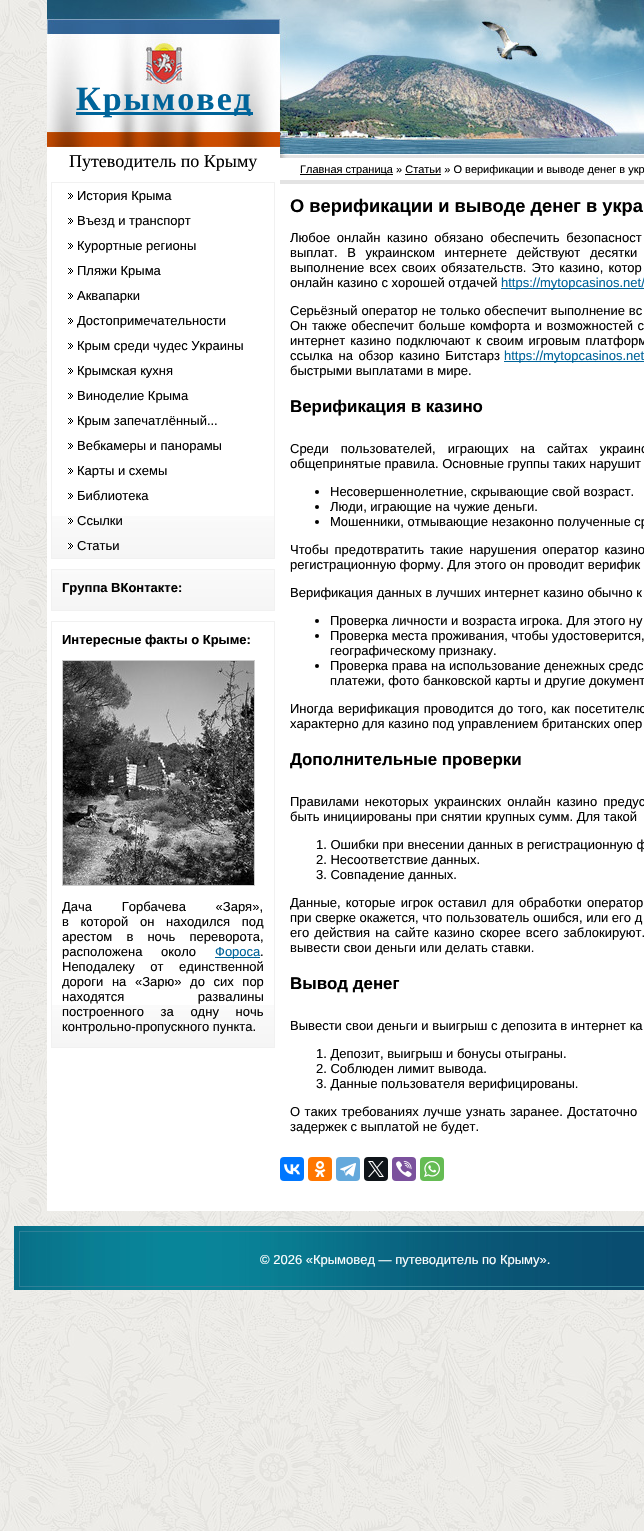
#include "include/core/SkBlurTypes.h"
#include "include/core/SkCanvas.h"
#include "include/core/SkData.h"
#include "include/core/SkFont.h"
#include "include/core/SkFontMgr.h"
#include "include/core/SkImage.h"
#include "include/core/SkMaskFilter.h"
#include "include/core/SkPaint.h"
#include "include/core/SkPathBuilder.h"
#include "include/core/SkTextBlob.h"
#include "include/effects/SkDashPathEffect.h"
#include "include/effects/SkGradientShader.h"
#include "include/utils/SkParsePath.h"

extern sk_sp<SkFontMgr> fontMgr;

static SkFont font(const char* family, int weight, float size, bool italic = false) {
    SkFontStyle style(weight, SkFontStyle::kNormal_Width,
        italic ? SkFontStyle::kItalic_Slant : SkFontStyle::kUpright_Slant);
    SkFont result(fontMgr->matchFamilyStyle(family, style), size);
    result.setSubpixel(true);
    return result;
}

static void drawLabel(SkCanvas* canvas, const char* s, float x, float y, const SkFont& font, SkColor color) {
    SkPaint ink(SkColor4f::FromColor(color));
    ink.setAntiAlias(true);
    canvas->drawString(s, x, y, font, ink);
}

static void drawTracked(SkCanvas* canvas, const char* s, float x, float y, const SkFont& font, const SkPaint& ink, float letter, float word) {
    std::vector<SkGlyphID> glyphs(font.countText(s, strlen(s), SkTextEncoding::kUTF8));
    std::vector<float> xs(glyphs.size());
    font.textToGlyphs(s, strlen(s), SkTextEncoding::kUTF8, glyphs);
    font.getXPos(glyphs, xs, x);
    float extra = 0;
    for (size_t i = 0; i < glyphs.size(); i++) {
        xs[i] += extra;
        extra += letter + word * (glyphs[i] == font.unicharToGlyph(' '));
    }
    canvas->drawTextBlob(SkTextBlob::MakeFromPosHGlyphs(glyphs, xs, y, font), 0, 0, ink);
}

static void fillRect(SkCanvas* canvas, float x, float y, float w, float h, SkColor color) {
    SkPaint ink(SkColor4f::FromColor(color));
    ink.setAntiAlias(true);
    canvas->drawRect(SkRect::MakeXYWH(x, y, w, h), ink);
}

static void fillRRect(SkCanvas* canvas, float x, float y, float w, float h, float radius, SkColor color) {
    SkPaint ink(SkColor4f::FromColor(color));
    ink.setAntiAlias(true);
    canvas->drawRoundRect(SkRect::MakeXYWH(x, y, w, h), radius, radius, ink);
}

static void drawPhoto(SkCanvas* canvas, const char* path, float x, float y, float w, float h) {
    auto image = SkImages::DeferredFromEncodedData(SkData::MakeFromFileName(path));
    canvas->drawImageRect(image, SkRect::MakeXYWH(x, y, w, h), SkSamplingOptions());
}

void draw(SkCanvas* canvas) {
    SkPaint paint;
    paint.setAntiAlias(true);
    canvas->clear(0xFFFFFFFF);
    drawPhoto(canvas, "assets/img1.png", 0, 0, 644, 1531);
    drawPhoto(canvas, "assets/img2.png", 47, 0, 597, 158);
    fillRect(canvas, 76, 112, 177, 3, 0xFF00649A);
    SkFont font1 = font("Liberation Serif", 700, 34);
    paint.setColor(0xFF00649A);
    drawTracked(canvas, "Крымовед", 76, 110, font1, paint, 2, 0);
    fillRect(canvas, 47, 147, 233, 1064, 0xFFFFFFFF);
    SkFont font2 = font("Liberation Serif", 400, 18);
    drawLabel(canvas, "Путеводитель по Крыму", 69, 167, font2, 0xFF000000);
    drawPhoto(canvas, "assets/img3.png", 52, 516, 222, 42);
    paint.setStroke(true);
    paint.setStrokeWidth(1);
    paint.setColor(0xFFF1F1F1);
    canvas->drawRect(SkRect::MakeXYWH(51.5f, 182.5f, 223, 376), paint);
    drawPhoto(canvas, "assets/img4.png", 68, 193, 5, 6);
    SkFont font3 = font("Liberation Sans", 400, 13);
    drawLabel(canvas, "История Крыма", 77, 200, font3, 0xFF000000);
    drawPhoto(canvas, "assets/img4.png", 68, 218, 5, 6);
    drawLabel(canvas, "Въезд и транспорт", 77, 225, font3, 0xFF000000);
    drawPhoto(canvas, "assets/img4.png", 68, 243, 5, 6);
    drawLabel(canvas, "Курортные регионы", 77, 250, font3, 0xFF000000);
    drawPhoto(canvas, "assets/img4.png", 68, 268, 5, 6);
    drawLabel(canvas, "Пляжи Крыма", 77, 275, font3, 0xFF000000);
    drawPhoto(canvas, "assets/img4.png", 68, 293, 5, 6);
    drawLabel(canvas, "Аквапарки", 77, 300, font3, 0xFF000000);
    drawPhoto(canvas, "assets/img4.png", 68, 318, 5, 6);
    drawLabel(canvas, "Достопримечательности", 77, 325, font3, 0xFF000000);
    drawPhoto(canvas, "assets/img4.png", 68, 343, 5, 6);
    drawLabel(canvas, "Крым среди чудес Украины", 77, 350, font3, 0xFF000000);
    drawPhoto(canvas, "assets/img4.png", 68, 368, 5, 6);
    drawLabel(canvas, "Крымская кухня", 77, 375, font3, 0xFF000000);
    drawPhoto(canvas, "assets/img4.png", 68, 393, 5, 6);
    drawLabel(canvas, "Виноделие Крыма", 77, 400, font3, 0xFF000000);
    drawPhoto(canvas, "assets/img4.png", 68, 418, 5, 6);
    drawLabel(canvas, "Крым запечатлённый...", 77, 425, font3, 0xFF000000);
    drawPhoto(canvas, "assets/img4.png", 68, 443, 5, 6);
    drawLabel(canvas, "Вебкамеры и панорамы", 77, 450, font3, 0xFF000000);
    drawPhoto(canvas, "assets/img4.png", 68, 468, 5, 6);
    drawLabel(canvas, "Карты и схемы", 77, 475, font3, 0xFF000000);
    drawPhoto(canvas, "assets/img4.png", 68, 493, 5, 6);
    drawLabel(canvas, "Библиотека", 77, 500, font3, 0xFF000000);
    drawPhoto(canvas, "assets/img5.png", 67, 518, 7, 6);
    drawLabel(canvas, "Ссылки", 77, 525, font3, 0xFF000000);
    drawPhoto(canvas, "assets/img5.png", 67, 543, 7, 6);
    drawLabel(canvas, "Статьи", 77, 550, font3, 0xFF000000);
    drawPhoto(canvas, "assets/img6.png", 52, 570, 222, 40);
    canvas->drawRect(SkRect::MakeXYWH(51.5f, 569.5f, 223, 41), paint);
    SkFont font4 = font("Liberation Sans", 700, 13);
    drawLabel(canvas, "Группа ВКонтакте:", 62, 592, font4, 0xFF000000);
    drawPhoto(canvas, "assets/img3.png", 52, 1005, 222, 42);
    canvas->drawRect(SkRect::MakeXYWH(51.5f, 621.5f, 223, 426), paint);
    drawLabel(canvas, "Интересные факты о Крыме:", 62, 644, font4, 0xFF000000);
    paint.setColor(0xFFCDCDCD);
    canvas->drawRect(SkRect::MakeXYWH(62.5f, 660.5f, 192, 225), paint);
    drawPhoto(canvas, "assets/img7.png", 63, 661, 191, 224);
    paint.setStroke(false);
    paint.setColor(0xFF000000);
    drawTracked(canvas, "Дача Горбачева «Заря»,", 62, 911, font3, paint, 0, 26);
    drawTracked(canvas, "в которой он находился под", 62, 926, font3, paint, 0, 8);
    drawTracked(canvas, "арестом в ночь переворота,", 62, 941, font3, paint, 0, 10.5f);
    drawTracked(canvas, "расположена около", 62, 956, font3, paint, 0, 15);
    fillRect(canvas, 215, 957, 45, 1, 0xFF00649A);
    drawLabel(canvas, "Фороса", 215, 956, font3, 0xFF00649A);
    drawLabel(canvas, ".", 260, 956, font3, 0xFF000000);
    drawTracked(canvas, "Неподалеку от единственной", 62, 971, font3, paint, 0, 12);
    drawTracked(canvas, "дороги на «Зарю» до сих пор", 62, 986, font3, paint, 0, 5);
    drawTracked(canvas, "находятся развалины", 62, 1001, font3, paint, 0, 70);
    drawTracked(canvas, "построенного за одну ночь", 62, 1016, font3, paint, 0, 13);
    drawLabel(canvas, "контрольно-пропускного пункта.", 62, 1031, font3, 0xFF000000);
    fillRect(canvas, 280, 158, 364, 1053, 0xFFFFFFFF);
    fillRect(canvas, 280, 180, 364, 4, 0xFFE3E3E3);
    fillRect(canvas, 300, 174, 93, 1, 0xFF000000);
    SkFont font5 = font("Liberation Sans", 400, 11);
    drawLabel(canvas, "Главная страница » Статьи » О верификации и выводе денег в укр", 300, 173, font5, 0xFF000000);
    fillRect(canvas, 405, 174, 36, 1, 0xFF000000);
    SkFont font6 = font("Liberation Sans", 700, 18.25f);
    drawLabel(canvas, "О верификации и выводе денег в укра", 290, 212, font6, 0xFF000000);
    drawTracked(canvas, "Любое онлайн казино обязано обеспечить безопасност", 290, 242, font3, paint, 0, 3);
    drawTracked(canvas, "выплат. В украинском интернете действуют десятки", 290, 257, font3, paint, 0, 6);
    drawTracked(canvas, "выполнение всех своих обязательств. Это казино, котор", 290, 272, font3, paint, 0, 1.5f);
    drawLabel(canvas, "онлайн казино с хорошей отдачей", 290, 287, font3, 0xFF000000);
    fillRect(canvas, 501, 288, 143, 1, 0xFF00649A);
    drawLabel(canvas, "https://mytopcasinos.net/", 501, 287, font3, 0xFF00649A);
    drawTracked(canvas, "Серьёзный оператор не только обеспечит выполнение вс", 290, 315, font3, paint, 0, 0.25f);
    drawTracked(canvas, "Он также обеспечит больше комфорта и возможностей с", 290, 330, font3, paint, 0, 1);
    drawTracked(canvas, "интернет казино подключают к своим игровым платформ", 290, 345, font3, paint, 0, 1.5f);
    drawTracked(canvas, "ссылка на обзор казино Битстарз", 290, 360, font3, paint, 0, 2);
    fillRect(canvas, 504, 361, 140, 1, 0xFF00649A);
    drawLabel(canvas, "https://mytopcasinos.net", 504, 360, font3, 0xFF00649A);
    drawLabel(canvas, "быстрыми выплатами в мире.", 290, 375, font3, 0xFF000000);
    SkFont font7 = font("Liberation Sans", 700, 16.9f);
    drawLabel(canvas, "Верификация в казино", 290, 412, font7, 0xFF000000);
    drawTracked(canvas, "Среди пользователей, играющих на сайтах украинс", 290, 453, font3, paint, 0, 8.5f);
    drawLabel(canvas, "общепринятые правила. Основные группы таких нарушит", 290, 468, font3, 0xFF000000);
    canvas->drawCircle(317, 492, 2, paint);
    drawLabel(canvas, "Несовершеннолетние, скрывающие свой возраст.", 330, 496, font3, 0xFF000000);
    canvas->drawCircle(317, 507, 2, paint);
    drawLabel(canvas, "Люди, играющие на чужие деньги.", 330, 511, font3, 0xFF000000);
    canvas->drawCircle(317, 522, 2, paint);
    drawLabel(canvas, "Мошенники, отмывающие незаконно полученные ср", 330, 526, font3, 0xFF000000);
    drawTracked(canvas, "Чтобы предотвратить такие нарушения оператор казино", 290, 554, font3, paint, 0, 2.25f);
    drawLabel(canvas, "регистрационную форму. Для этого он проводит верифик", 290, 569, font3, 0xFF000000);
    drawLabel(canvas, "Верификация данных в лучших интернет казино обычно к", 290, 597, font3, 0xFF000000);
    canvas->drawCircle(317, 621, 2, paint);
    drawLabel(canvas, "Проверка личности и возраста игрока. Для этого ну", 330, 625, font3, 0xFF000000);
    canvas->drawCircle(317, 636, 2, paint);
    drawLabel(canvas, "Проверка места проживания, чтобы удостоверится,", 330, 640, font3, 0xFF000000);
    drawLabel(canvas, "географическому признаку.", 330, 655, font3, 0xFF000000);
    canvas->drawCircle(317, 666, 2, paint);
    drawLabel(canvas, "Проверка права на использование денежных средс", 330, 670, font3, 0xFF000000);
    drawLabel(canvas, "платежи, фото банковской карты и другие документ", 330, 685, font3, 0xFF000000);
    drawTracked(canvas, "Иногда верификация проводится до того, как посетителю", 290, 713, font3, paint, 0, 1);
    drawLabel(canvas, "характерно для казино под управлением британских опер", 290, 728, font3, 0xFF000000);
    drawLabel(canvas, "Дополнительные проверки", 290, 765, font7, 0xFF000000);
    drawTracked(canvas, "Правилами некоторых украинских онлайн казино предус", 290, 806, font3, paint, 0, 2.25f);
    drawLabel(canvas, "быть инициированы при снятии крупных сумм. Для такой", 290, 821, font3, 0xFF000000);
    drawLabel(canvas, "1. Ошибки при внесении данных в регистрационную ф", 316, 849, font3, 0xFF000000);
    drawLabel(canvas, "2. Несоответствие данных.", 316, 864, font3, 0xFF000000);
    drawLabel(canvas, "3. Совпадение данных.", 316, 879, font3, 0xFF000000);
    drawTracked(canvas, "Данные, которые игрок оставил для обработки оператор", 290, 907, font3, paint, 0, 1.5f);
    drawLabel(canvas, "при сверке окажется, что пользователь ошибся, или его д", 290, 922, font3, 0xFF000000);
    drawTracked(canvas, "его действия на сайте казино скорее всего заблокируют.", 290, 937, font3, paint, 0, 1.5f);
    drawLabel(canvas, "вывести свои деньги или делать ставки.", 290, 952, font3, 0xFF000000);
    drawLabel(canvas, "Вывод денег", 290, 989, font7, 0xFF000000);
    drawLabel(canvas, "Вывести свои деньги и выигрыш с депозита в интернет ка", 290, 1030, font3, 0xFF000000);
    drawLabel(canvas, "1. Депозит, выигрыш и бонусы отыграны.", 316, 1058, font3, 0xFF000000);
    drawLabel(canvas, "2. Соблюден лимит вывода.", 316, 1073, font3, 0xFF000000);
    drawLabel(canvas, "3. Данные пользователя верифицированы.", 316, 1088, font3, 0xFF000000);
    drawTracked(canvas, "О таких требованиях лучше узнать заранее. Достаточно", 290, 1116, font3, paint, 0, 0.75f);
    drawLabel(canvas, "задержек с выплатой не будет.", 290, 1131, font3, 0xFF000000);
    fillRRect(canvas, 280, 1157, 24, 24, 4, 0xFF0077FF);
    drawPhoto(canvas, "assets/img8.png", 284, 1164, 16, 11);
    fillRRect(canvas, 308, 1157, 24, 24, 4, 0xFFFF7700);
    drawPhoto(canvas, "assets/img9.png", 314, 1161, 12, 16);
    fillRRect(canvas, 336, 1157, 24, 24, 4, 0xFF64A9DC);
    drawPhoto(canvas, "assets/img10.png", 340, 1163, 16, 14);
    fillRRect(canvas, 364, 1157, 24, 24, 4, 0xFF0F1419);
    drawPhoto(canvas, "assets/img11.png", 368, 1161, 16, 16);
    fillRRect(canvas, 392, 1157, 24, 24, 4, 0xFF7B519D);
    drawPhoto(canvas, "assets/img12.png", 396, 1161, 16, 16);
    fillRRect(canvas, 420, 1157, 24, 24, 4, 0xFF65BC54);
    drawPhoto(canvas, "assets/img13.png", 424, 1161, 16, 16);
    drawPhoto(canvas, "assets/img14.png", 14, 1226, 630, 64);
    paint.setStroke(true);
    paint.setColor(0xFF308198);
    canvas->drawRect(SkRect::MakeXYWH(19.5f, 1231.5f, 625, 55), paint);
    drawLabel(canvas, "© 2026 «Крымовед — путеводитель по Крыму».", 260, 1264, font3, 0xFFFFFFFF);
}
